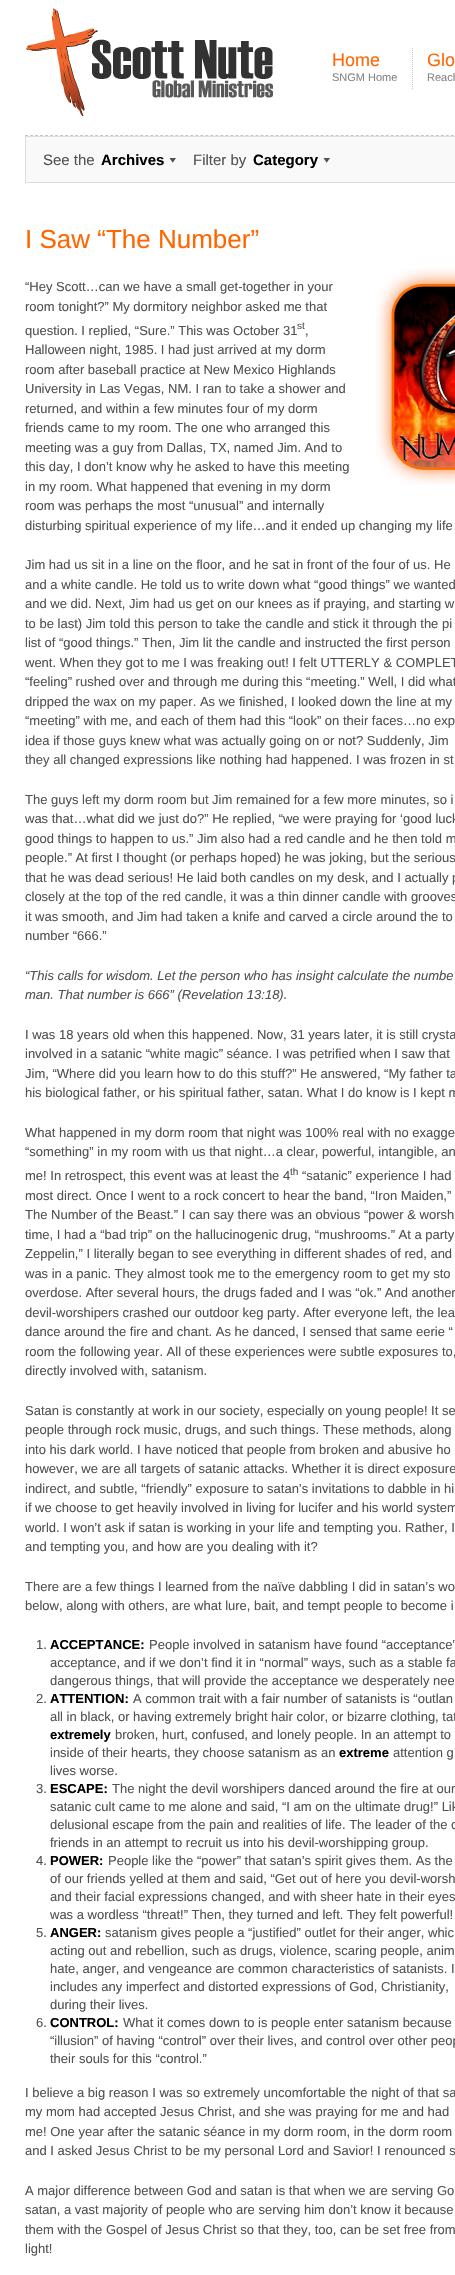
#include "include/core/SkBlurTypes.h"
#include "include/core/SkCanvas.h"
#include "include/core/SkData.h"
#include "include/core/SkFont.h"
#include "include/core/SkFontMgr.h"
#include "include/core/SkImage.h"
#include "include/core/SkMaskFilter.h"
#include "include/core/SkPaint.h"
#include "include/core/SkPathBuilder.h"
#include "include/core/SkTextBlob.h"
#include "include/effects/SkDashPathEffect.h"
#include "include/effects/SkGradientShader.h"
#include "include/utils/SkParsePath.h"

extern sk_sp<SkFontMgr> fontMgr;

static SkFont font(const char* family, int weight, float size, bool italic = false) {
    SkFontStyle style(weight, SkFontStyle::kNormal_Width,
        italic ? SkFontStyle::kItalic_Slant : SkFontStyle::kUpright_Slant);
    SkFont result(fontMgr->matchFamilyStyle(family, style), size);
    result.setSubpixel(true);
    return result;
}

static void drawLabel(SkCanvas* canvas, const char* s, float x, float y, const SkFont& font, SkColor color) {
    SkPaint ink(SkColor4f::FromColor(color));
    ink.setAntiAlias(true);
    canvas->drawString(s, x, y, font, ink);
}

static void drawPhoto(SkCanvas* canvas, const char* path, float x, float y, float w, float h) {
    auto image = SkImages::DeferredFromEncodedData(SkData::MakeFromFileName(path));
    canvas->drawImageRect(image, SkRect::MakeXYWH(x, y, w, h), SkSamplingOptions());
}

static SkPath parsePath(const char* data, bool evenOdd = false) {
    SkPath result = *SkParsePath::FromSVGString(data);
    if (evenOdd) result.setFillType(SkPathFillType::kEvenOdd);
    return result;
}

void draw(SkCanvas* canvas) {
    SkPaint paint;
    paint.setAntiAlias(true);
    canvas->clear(0xFFFFFFFF);
    paint.setStroke(true);
    paint.setStrokeWidth(1);
    paint.setColor(0xFFC6C6C6);
    paint.setPathEffect(SkDashPathEffect::Make({{3, 2.01f}}, 0));
    canvas->drawPath(parsePath("M25 135.5H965"), paint);
    paint.setPathEffect(nullptr);
    drawPhoto(canvas, "assets/img1.png", 26, 8, 247, 108);
    paint.setPathEffect(SkDashPathEffect::Make({{1, 1}}, 0));
    canvas->drawPath(parsePath("M412.5 48V89"), paint);
    paint.setPathEffect(nullptr);
    SkFont font1 = font("Liberation Sans", 400, 18);
    drawLabel(canvas, "Home", 332, 66, font1, 0xFFFF6600);
    SkFont font2 = font("Liberation Sans", 400, 11);
    drawLabel(canvas, "SNGM Home", 332, 81, font2, 0xFF848484);
    drawLabel(canvas, "Glo", 427, 66, font1, 0xFFFF6600);
    drawLabel(canvas, "Reach", 427, 81, font2, 0xFF848484);
    paint.setStroke(false);
    paint.setColor(0xFFF9F9F9);
    canvas->drawRect(SkRect::MakeXYWH(25.5f, 136.5f, 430, 46), paint);
    paint.setStroke(true);
    paint.setColor(0xFFDDDDDD);
    canvas->drawRect(SkRect::MakeXYWH(25.5f, 136.5f, 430, 46), paint);
    SkFont font3 = font("Liberation Sans", 400, 15);
    drawLabel(canvas, "See the", 43, 165, font3, 0xFF525252);
    SkFont font4 = font("Liberation Sans", 700, 15);
    drawLabel(canvas, "Archives", 101, 165, font4, 0xFF000000);
    drawPhoto(canvas, "assets/img2.png", 169, 158, 7, 5);
    drawLabel(canvas, "Filter by", 193, 165, font3, 0xFF525252);
    drawLabel(canvas, "Category", 253, 165, font4, 0xFF000000);
    drawPhoto(canvas, "assets/img2.png", 323, 158, 7, 5);
    SkFont font5 = font("Liberation Sans", 400, 26);
    drawLabel(canvas, "I Saw “The Number”", 25, 248, font5, 0xFFFF6600);
    SkFont font6 = font("Liberation Sans", 400, 13);
    drawLabel(canvas, "“Hey Scott…can we have a small get-together in your", 25, 291, font6, 0xFF525252);
    drawPhoto(canvas, "assets/img3.png", 376, 268, 79, 217);
    drawLabel(canvas, "room tonight?” My dormitory neighbor asked me that", 25, 311, font6, 0xFF525252);
    drawLabel(canvas, "question. I replied, “Sure.” This was October 31", 25, 335, font6, 0xFF525252);
    SkFont font7 = font("Liberation Sans", 400, 10);
    drawLabel(canvas, "st", 297, 329, font7, 0xFF525252);
    drawLabel(canvas, ",", 305, 335, font6, 0xFF525252);
    drawLabel(canvas, "Halloween night, 1985. I had just arrived at my dorm", 25, 354, font6, 0xFF525252);
    drawLabel(canvas, "room after baseball practice at New Mexico Highlands", 25, 374, font6, 0xFF525252);
    drawLabel(canvas, "University in Las Vegas, NM. I ran to take a shower and", 25, 393, font6, 0xFF525252);
    drawLabel(canvas, "returned, and within a few minutes four of my dorm", 25, 413, font6, 0xFF525252);
    drawLabel(canvas, "friends came to my room. The one who arranged this", 25, 432, font6, 0xFF525252);
    drawLabel(canvas, "meeting was a guy from Dallas, TX, named Jim. And to", 25, 452, font6, 0xFF525252);
    drawLabel(canvas, "this day, I don’t know why he asked to have this meeting", 25, 471, font6, 0xFF525252);
    drawLabel(canvas, "in my room. What happened that evening in my dorm", 25, 491, font6, 0xFF525252);
    drawLabel(canvas, "room was perhaps the most “unusual” and internally", 25, 510, font6, 0xFF525252);
    drawLabel(canvas, "disturbing spiritual experience of my life…and it ended up changing my life", 25, 530, font6, 0xFF525252);
    drawLabel(canvas, "Jim had us sit in a line on the floor, and he sat in front of the four of us. He", 25, 569, font6, 0xFF525252);
    drawLabel(canvas, "and a white candle. He told us to write down what “good things” we wanted", 25, 589, font6, 0xFF525252);
    drawLabel(canvas, "and we did. Next, Jim had us get on our knees as if praying, and starting w", 25, 608, font6, 0xFF525252);
    drawLabel(canvas, "to be last) Jim told this person to take the candle and stick it through the pi", 25, 628, font6, 0xFF525252);
    drawLabel(canvas, "list of “good things.” Then, Jim lit the candle and instructed the first person", 25, 647, font6, 0xFF525252);
    drawLabel(canvas, "went. When they got to me I was freaking out! I felt UTTERLY & COMPLET", 25, 667, font6, 0xFF525252);
    drawLabel(canvas, "“feeling” rushed over and through me during this “meeting.” Well, I did what", 25, 686, font6, 0xFF525252);
    drawLabel(canvas, "dripped the wax on my paper. As we finished, I looked down the line at my", 25, 706, font6, 0xFF525252);
    drawLabel(canvas, "“meeting” with me, and each of them had this “look” on their faces…no exp", 25, 725, font6, 0xFF525252);
    drawLabel(canvas, "idea if those guys knew what was actually going on or not? Suddenly, Jim", 25, 745, font6, 0xFF525252);
    drawLabel(canvas, "they all changed expressions like nothing had happened. I was frozen in st", 25, 764, font6, 0xFF525252);
    drawLabel(canvas, "The guys left my dorm room but Jim remained for a few more minutes, so i", 25, 804, font6, 0xFF525252);
    drawLabel(canvas, "was that…what did we just do?” He replied, “we were praying for ‘good luck", 25, 823, font6, 0xFF525252);
    drawLabel(canvas, "good things to happen to us.” Jim also had a red candle and he then told m", 25, 843, font6, 0xFF525252);
    drawLabel(canvas, "people.” At first I thought (or perhaps hoped) he was joking, but the serious", 25, 862, font6, 0xFF525252);
    drawLabel(canvas, "that he was dead serious! He laid both candles on my desk, and I actually p", 25, 882, font6, 0xFF525252);
    drawLabel(canvas, "closely at the top of the red candle, it was a thin dinner candle with grooves", 25, 901, font6, 0xFF525252);
    drawLabel(canvas, "it was smooth, and Jim had taken a knife and carved a circle around the to", 25, 921, font6, 0xFF525252);
    drawLabel(canvas, "number “666.”", 25, 940, font6, 0xFF525252);
    SkFont font8 = font("Liberation Sans", 400, 13, true);
    drawLabel(canvas, "“This calls for wisdom. Let the person who has insight calculate the numbe", 25, 980, font8, 0xFF525252);
    drawLabel(canvas, "man. That number is 666” (Revelation 13:18).", 25, 999, font8, 0xFF525252);
    drawLabel(canvas, "I was 18 years old when this happened. Now, 31 years later, it is still crysta", 25, 1039, font6, 0xFF525252);
    drawLabel(canvas, "involved in a satanic “white magic” séance. I was petrified when I saw that", 25, 1058, font6, 0xFF525252);
    drawLabel(canvas, "Jim, “Where did you learn how to do this stuff?” He answered, “My father ta", 25, 1078, font6, 0xFF525252);
    drawLabel(canvas, "his biological father, or his spiritual father, satan. What I do know is I kept m", 25, 1097, font6, 0xFF525252);
    drawLabel(canvas, "What happened in my dorm room that night was 100% real with no exagge", 25, 1137, font6, 0xFF525252);
    drawLabel(canvas, "“something” in my room with us that night…a clear, powerful, intangible, an", 25, 1156, font6, 0xFF525252);
    drawLabel(canvas, "me! In retrospect, this event was at least the 4", 25, 1180, font6, 0xFF525252);
    drawLabel(canvas, "th", 290, 1175, font7, 0xFF525252);
    drawLabel(canvas, "“satanic” experience I had", 302, 1180, font6, 0xFF525252);
    drawLabel(canvas, "most direct. Once I went to a rock concert to hear the band, “Iron Maiden,”", 25, 1200, font6, 0xFF525252);
    drawLabel(canvas, "The Number of the Beast.” I can say there was an obvious “power & worsh", 25, 1219, font6, 0xFF525252);
    drawLabel(canvas, "time, I had a “bad trip” on the hallucinogenic drug, “mushrooms.” At a party", 25, 1239, font6, 0xFF525252);
    drawLabel(canvas, "Zeppelin,” I literally began to see everything in different shades of red, and", 25, 1258, font6, 0xFF525252);
    drawLabel(canvas, "was in a panic. They almost took me to the emergency room to get my sto", 25, 1278, font6, 0xFF525252);
    drawLabel(canvas, "overdose. After several hours, the drugs faded and I was “ok.” And another", 25, 1297, font6, 0xFF525252);
    drawLabel(canvas, "devil-worshipers crashed our outdoor keg party. After everyone left, the lea", 25, 1317, font6, 0xFF525252);
    drawLabel(canvas, "dance around the fire and chant. As he danced, I sensed that same eerie “", 25, 1336, font6, 0xFF525252);
    drawLabel(canvas, "room the following year. All of these experiences were subtle exposures to,", 25, 1356, font6, 0xFF525252);
    drawLabel(canvas, "directly involved with, satanism.", 25, 1375, font6, 0xFF525252);
    drawLabel(canvas, "Satan is constantly at work in our society, especially on young people! It se", 25, 1415, font6, 0xFF525252);
    drawLabel(canvas, "people through rock music, drugs, and such things. These methods, along", 25, 1434, font6, 0xFF525252);
    drawLabel(canvas, "into his dark world. I have noticed that people from broken and abusive ho", 25, 1454, font6, 0xFF525252);
    drawLabel(canvas, "however, we are all targets of satanic attacks. Whether it is direct exposure", 25, 1473, font6, 0xFF525252);
    drawLabel(canvas, "indirect, and subtle, “friendly” exposure to satan’s invitations to dabble in hi", 25, 1493, font6, 0xFF525252);
    drawLabel(canvas, "if we choose to get heavily involved in living for lucifer and his world system", 25, 1512, font6, 0xFF525252);
    drawLabel(canvas, "world. I won’t ask if satan is working in your life and tempting you. Rather, I", 25, 1532, font6, 0xFF525252);
    drawLabel(canvas, "and tempting you, and how are you dealing with it?", 25, 1551, font6, 0xFF525252);
    drawLabel(canvas, "There are a few things I learned from the naïve dabbling I did in satan’s wo", 25, 1591, font6, 0xFF525252);
    drawLabel(canvas, "below, along with others, are what lure, bait, and tempt people to become i", 25, 1610, font6, 0xFF525252);
    drawLabel(canvas, "1.", 36, 1649, font6, 0xFF525252);
    SkFont font9 = font("Liberation Sans", 700, 13);
    drawLabel(canvas, "ACCEPTANCE:", 50, 1649, font9, 0xFF000000);
    drawLabel(canvas, "People involved in satanism have found “acceptance”", 149, 1649, font6, 0xFF525252);
    drawLabel(canvas, "acceptance, and if we don’t find it in “normal” ways, such as a stable fa", 50, 1667, font6, 0xFF525252);
    drawLabel(canvas, "dangerous things, that will provide the acceptance we desperately nee", 50, 1685, font6, 0xFF525252);
    drawLabel(canvas, "2.", 36, 1703, font6, 0xFF525252);
    drawLabel(canvas, "ATTENTION:", 50, 1703, font9, 0xFF000000);
    drawLabel(canvas, "A common trait with a fair number of satanists is “outlan", 133, 1703, font6, 0xFF525252);
    drawLabel(canvas, "all in black, or having extremely bright hair color, or bizarre clothing, tat", 50, 1721, font6, 0xFF525252);
    drawLabel(canvas, "extremely", 50, 1739, font9, 0xFF000000);
    drawLabel(canvas, "broken, hurt, confused, and lonely people. In an attempt to", 115, 1739, font6, 0xFF525252);
    drawLabel(canvas, "inside of their hearts, they choose satanism as an", 50, 1757, font6, 0xFF525252);
    drawLabel(canvas, "extreme", 339, 1757, font9, 0xFF000000);
    drawLabel(canvas, "attention g", 393, 1757, font6, 0xFF525252);
    drawLabel(canvas, "lives worse.", 50, 1775, font6, 0xFF525252);
    drawLabel(canvas, "3.", 36, 1793, font6, 0xFF525252);
    drawLabel(canvas, "ESCAPE:", 50, 1793, font9, 0xFF000000);
    drawLabel(canvas, "The night the devil worshipers danced around the fire at our", 112, 1793, font6, 0xFF525252);
    drawLabel(canvas, "satanic cult came to me alone and said, “I am on the ultimate drug!” Lik", 50, 1811, font6, 0xFF525252);
    drawLabel(canvas, "delusional escape from the pain and realities of life. The leader of the c", 50, 1829, font6, 0xFF525252);
    drawLabel(canvas, "friends in an attempt to recruit us into his devil-worshipping group.", 50, 1847, font6, 0xFF525252);
    drawLabel(canvas, "4.", 36, 1865, font6, 0xFF525252);
    drawLabel(canvas, "POWER:", 50, 1865, font9, 0xFF000000);
    drawLabel(canvas, "People like the “power” that satan’s spirit gives them. As the", 108, 1865, font6, 0xFF525252);
    drawLabel(canvas, "of our friends yelled at them and said, “Get out of here you devil-worsh", 50, 1883, font6, 0xFF525252);
    drawLabel(canvas, "and their facial expressions changed, and with sheer hate in their eyes", 50, 1901, font6, 0xFF525252);
    drawLabel(canvas, "was a wordless “threat!” Then, they turned and left. They felt powerful!", 50, 1919, font6, 0xFF525252);
    drawLabel(canvas, "5.", 36, 1937, font6, 0xFF525252);
    drawLabel(canvas, "ANGER:", 50, 1937, font9, 0xFF000000);
    drawLabel(canvas, "satanism gives people a “justified” outlet for their anger, whic", 105, 1937, font6, 0xFF525252);
    drawLabel(canvas, "acting out and rebellion, such as drugs, violence, scaring people, anim", 50, 1955, font6, 0xFF525252);
    drawLabel(canvas, "hate, anger, and vengeance are common characteristics of satanists. I", 50, 1973, font6, 0xFF525252);
    drawLabel(canvas, "includes any imperfect and distorted expressions of God, Christianity,", 50, 1991, font6, 0xFF525252);
    drawLabel(canvas, "during their lives.", 50, 2009, font6, 0xFF525252);
    drawLabel(canvas, "6.", 36, 2027, font6, 0xFF525252);
    drawLabel(canvas, "CONTROL:", 50, 2027, font9, 0xFF000000);
    drawLabel(canvas, "What it comes down to is people enter satanism because", 123, 2027, font6, 0xFF525252);
    drawLabel(canvas, "“illusion” of having “control” over their lives, and control over other peop", 50, 2045, font6, 0xFF525252);
    drawLabel(canvas, "their souls for this “control.”", 50, 2063, font6, 0xFF525252);
    drawLabel(canvas, "I believe a big reason I was so extremely uncomfortable the night of that sa", 25, 2097, font6, 0xFF525252);
    drawLabel(canvas, "my mom had accepted Jesus Christ, and she was praying for me and had", 25, 2116, font6, 0xFF525252);
    drawLabel(canvas, "me! One year after the satanic séance in my dorm room, in the dorm room", 25, 2136, font6, 0xFF525252);
    drawLabel(canvas, "and I asked Jesus Christ to be my personal Lord and Savior! I renounced s", 25, 2155, font6, 0xFF525252);
    drawLabel(canvas, "A major difference between God and satan is that when we are serving Go", 25, 2195, font6, 0xFF525252);
    drawLabel(canvas, "satan, a vast majority of people who are serving him don’t know it because", 25, 2214, font6, 0xFF525252);
    drawLabel(canvas, "them with the Gospel of Jesus Christ so that they, too, can be set free from", 25, 2234, font6, 0xFF525252);
    drawLabel(canvas, "light!", 25, 2253, font6, 0xFF525252);
}
